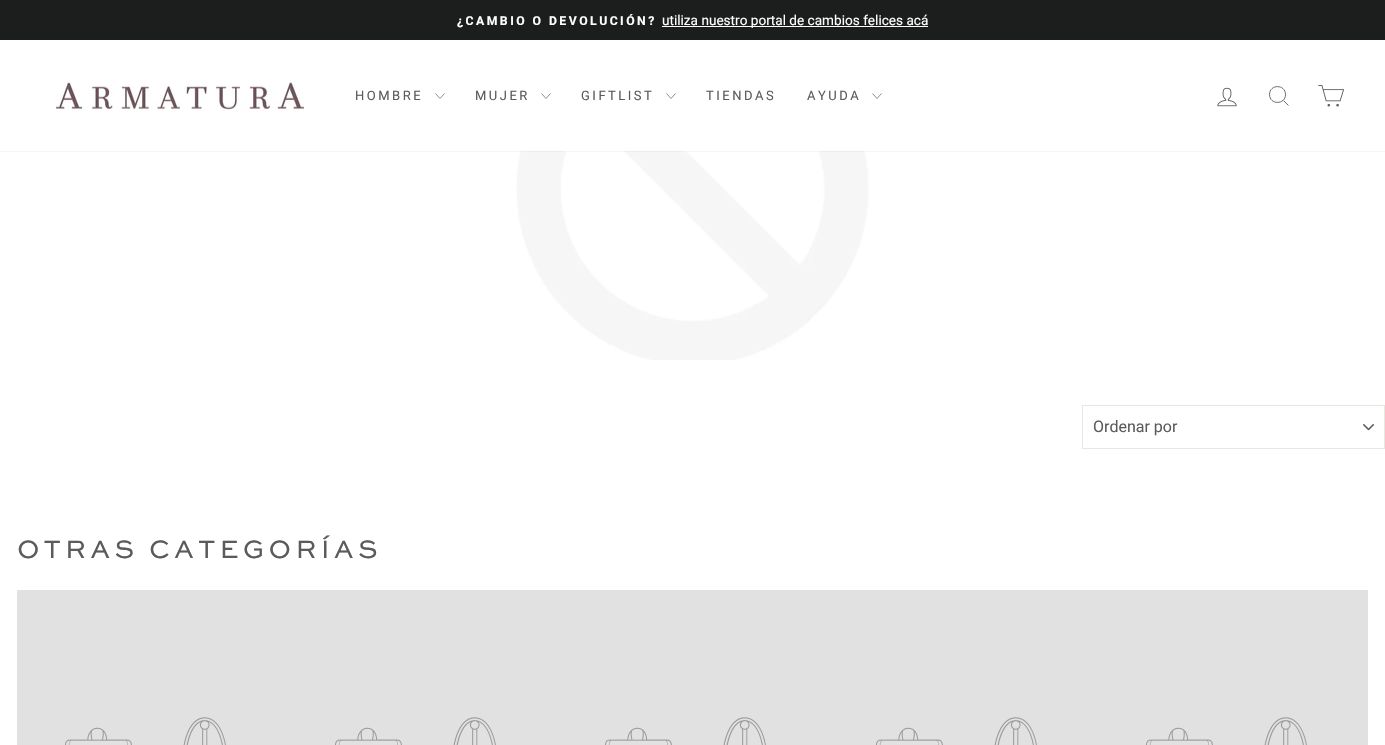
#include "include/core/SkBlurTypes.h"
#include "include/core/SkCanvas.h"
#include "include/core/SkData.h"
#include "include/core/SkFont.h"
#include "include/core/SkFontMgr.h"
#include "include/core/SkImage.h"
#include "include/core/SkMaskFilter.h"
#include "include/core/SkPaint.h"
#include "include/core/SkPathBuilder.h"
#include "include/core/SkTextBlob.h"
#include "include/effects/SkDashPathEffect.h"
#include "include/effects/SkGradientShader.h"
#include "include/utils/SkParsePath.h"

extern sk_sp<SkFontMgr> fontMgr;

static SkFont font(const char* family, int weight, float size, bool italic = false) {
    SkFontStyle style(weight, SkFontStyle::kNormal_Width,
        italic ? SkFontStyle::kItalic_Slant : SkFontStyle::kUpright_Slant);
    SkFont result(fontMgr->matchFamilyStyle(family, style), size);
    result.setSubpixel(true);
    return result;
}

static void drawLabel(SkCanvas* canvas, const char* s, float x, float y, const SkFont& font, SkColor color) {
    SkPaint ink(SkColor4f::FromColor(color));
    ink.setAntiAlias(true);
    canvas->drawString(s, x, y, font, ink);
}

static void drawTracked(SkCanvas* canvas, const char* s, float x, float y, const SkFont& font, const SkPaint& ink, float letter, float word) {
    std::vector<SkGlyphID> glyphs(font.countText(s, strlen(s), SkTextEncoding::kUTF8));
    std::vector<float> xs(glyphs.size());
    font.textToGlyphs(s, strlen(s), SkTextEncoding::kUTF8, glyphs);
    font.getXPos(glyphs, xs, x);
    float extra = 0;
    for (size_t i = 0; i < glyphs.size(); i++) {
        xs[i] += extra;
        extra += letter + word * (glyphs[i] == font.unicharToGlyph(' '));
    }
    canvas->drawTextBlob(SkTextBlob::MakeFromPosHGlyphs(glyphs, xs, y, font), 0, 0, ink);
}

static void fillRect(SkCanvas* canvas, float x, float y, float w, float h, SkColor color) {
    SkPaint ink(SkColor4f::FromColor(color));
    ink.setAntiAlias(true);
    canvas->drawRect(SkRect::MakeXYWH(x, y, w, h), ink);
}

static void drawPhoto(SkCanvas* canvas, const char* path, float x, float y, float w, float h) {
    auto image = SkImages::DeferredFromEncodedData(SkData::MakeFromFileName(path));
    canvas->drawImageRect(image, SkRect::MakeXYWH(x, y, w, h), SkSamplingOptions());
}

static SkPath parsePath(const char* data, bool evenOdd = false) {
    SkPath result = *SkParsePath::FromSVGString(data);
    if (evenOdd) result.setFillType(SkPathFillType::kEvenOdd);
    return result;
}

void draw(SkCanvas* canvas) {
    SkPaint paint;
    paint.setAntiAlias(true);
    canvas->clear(0xFFFFFFFF);
    fillRect(canvas, 0, 0, 1385, 40, 0xFF1C1D1D);
    SkFont font1 = font("Roboto", 700, 12.25f);
    paint.setColor(0xFFFFFFFF);
    drawTracked(canvas, "¿CAMBIO O DEVOLUCIÓN?", 457, 25, font1, paint, 2.45f, 0);
    fillRect(canvas, 662, 26, 266, 1, 0xFFFFFFFF);
    SkFont font2 = font("Roboto", 400, 13.6f);
    drawLabel(canvas, "utiliza nuestro portal de cambios felices acá", 662, 25, font2, 0xFFFFFFFF);
    drawPhoto(canvas, "assets/img4.png", 516, 151, 353, 209);
    paint.setColor(0x33000000);
    paint.setMaskFilter(SkMaskFilter::MakeBlur(kNormal_SkBlurStyle, 0.5f));
    canvas->drawRect(SkRect::MakeXYWH(0, 40, 1385, 111), paint);
    paint.setMaskFilter(nullptr);
    fillRect(canvas, 0, 40, 1385, 111, 0xFFFFFFFF);
    drawPhoto(canvas, "assets/img1.png", 55, 82, 249, 29);
    SkFont font3 = font("Roboto", 400, 13);
    paint.setColor(0xFF5B5B5B);
    drawTracked(canvas, "HOMBRE", 355, 100, font3, paint, 2.5f, 0);
    paint.setStroke(true);
    paint.setStrokeWidth(0.7f);
    canvas->drawPath(parsePath("M435.5 93.5L440 98.5L444.5 93.5"), paint);
    paint.setStroke(false);
    drawTracked(canvas, "MUJER", 475, 100, font3, paint, 2.5f, 0);
    paint.setStroke(true);
    canvas->drawPath(parsePath("M541.5 93.5L546 98.5L550.5 93.5"), paint);
    paint.setStroke(false);
    drawTracked(canvas, "GIFTLIST", 581, 100, font3, paint, 2.5f, 0);
    paint.setStroke(true);
    canvas->drawPath(parsePath("M666.5 93.5L671 98.5L675.5 93.5"), paint);
    paint.setStroke(false);
    drawTracked(canvas, "TIENDAS", 706, 100, font3, paint, 2.5f, 0);
    drawTracked(canvas, "AYUDA", 807, 100, font3, paint, 2.5f, 0);
    paint.setStroke(true);
    canvas->drawPath(parsePath("M872.5 93.5L877 98.5L881.5 93.5"), paint);
    drawPhoto(canvas, "assets/img2.png", 1217, 87, 20, 20);
    paint.setStrokeWidth(0.9f);
    canvas->drawPath(parsePath("M1285.5 94.5C1285.5 105 1269.5 105 1269.5 94.5C1269.5 84 1285.5 84 1285.5 94.5ZM1288.5 105.5L1283.5 100.5"), paint);
    drawPhoto(canvas, "assets/img3.png", 1318, 85, 27, 22);
    drawPhoto(canvas, "assets/img5.png", 1363, 424, 11, 7);
    paint.setStrokeWidth(1);
    paint.setColor(0xFFE8E8E1);
    canvas->drawRect(SkRect::MakeXYWH(1082.5f, 405.5f, 302, 43), paint);
    SkFont font4 = font("Roboto", 400, 16);
    drawLabel(canvas, "Ordenar por", 1093, 432, font4, 0xFF5B5B5B);
    SkFont font5 = font("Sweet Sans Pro", 700, 25.5f);
    paint.setStroke(false);
    paint.setColor(0xFF5B5B5B);
    drawTracked(canvas, "OTRAS CATEGORÍAS", 17, 558, font5, paint, 5, 0);
    fillRect(canvas, 17, 590, 1351, 155, 0xFFE1E1E1);
    drawPhoto(canvas, "assets/img6.png", 65, 717, 161, 28);
    drawPhoto(canvas, "assets/img6.png", 335, 717, 161, 28);
    drawPhoto(canvas, "assets/img6.png", 605, 717, 161, 28);
    drawPhoto(canvas, "assets/img6.png", 876, 717, 161, 28);
    drawPhoto(canvas, "assets/img6.png", 1146, 717, 161, 28);
}
